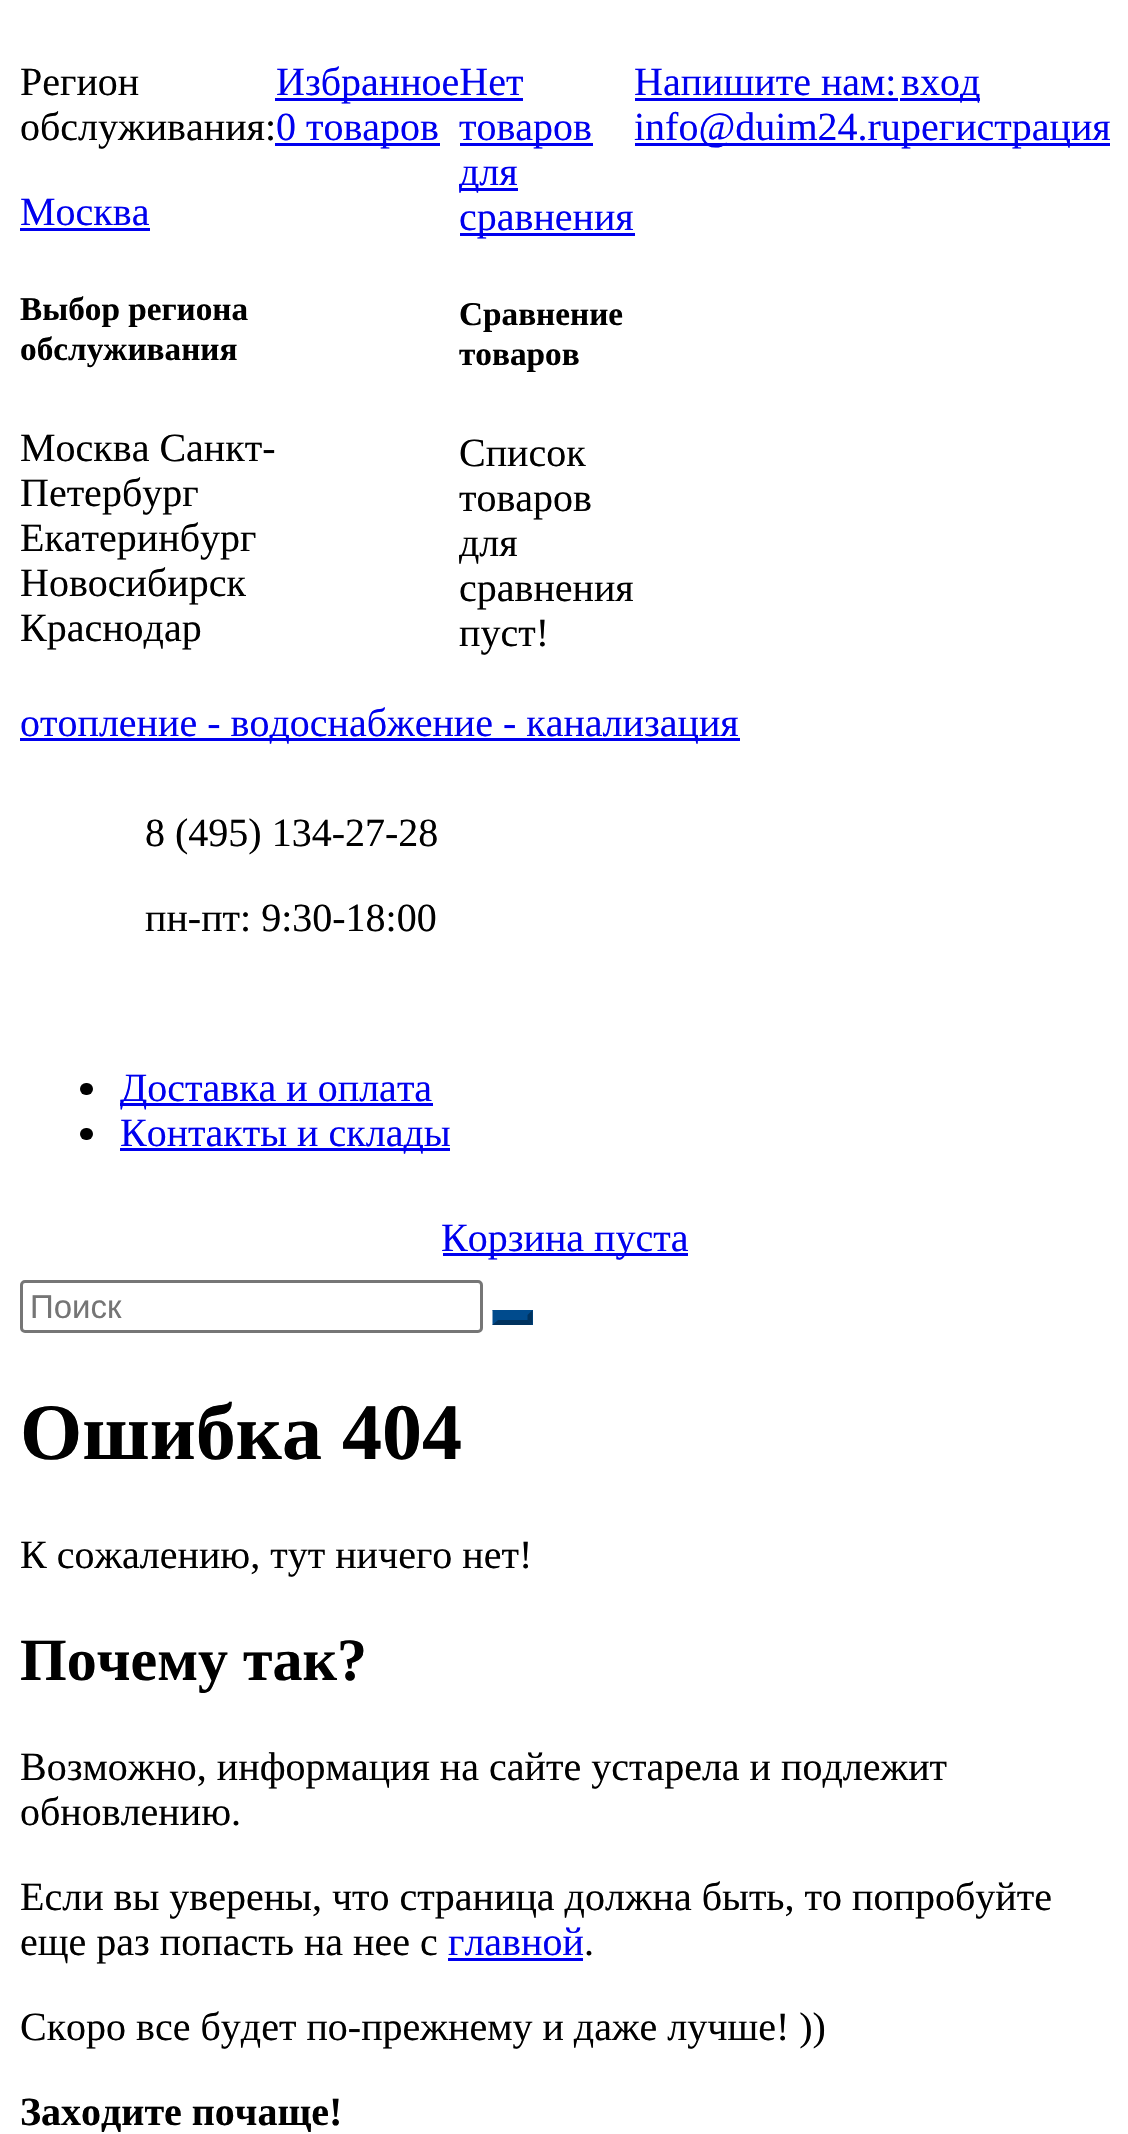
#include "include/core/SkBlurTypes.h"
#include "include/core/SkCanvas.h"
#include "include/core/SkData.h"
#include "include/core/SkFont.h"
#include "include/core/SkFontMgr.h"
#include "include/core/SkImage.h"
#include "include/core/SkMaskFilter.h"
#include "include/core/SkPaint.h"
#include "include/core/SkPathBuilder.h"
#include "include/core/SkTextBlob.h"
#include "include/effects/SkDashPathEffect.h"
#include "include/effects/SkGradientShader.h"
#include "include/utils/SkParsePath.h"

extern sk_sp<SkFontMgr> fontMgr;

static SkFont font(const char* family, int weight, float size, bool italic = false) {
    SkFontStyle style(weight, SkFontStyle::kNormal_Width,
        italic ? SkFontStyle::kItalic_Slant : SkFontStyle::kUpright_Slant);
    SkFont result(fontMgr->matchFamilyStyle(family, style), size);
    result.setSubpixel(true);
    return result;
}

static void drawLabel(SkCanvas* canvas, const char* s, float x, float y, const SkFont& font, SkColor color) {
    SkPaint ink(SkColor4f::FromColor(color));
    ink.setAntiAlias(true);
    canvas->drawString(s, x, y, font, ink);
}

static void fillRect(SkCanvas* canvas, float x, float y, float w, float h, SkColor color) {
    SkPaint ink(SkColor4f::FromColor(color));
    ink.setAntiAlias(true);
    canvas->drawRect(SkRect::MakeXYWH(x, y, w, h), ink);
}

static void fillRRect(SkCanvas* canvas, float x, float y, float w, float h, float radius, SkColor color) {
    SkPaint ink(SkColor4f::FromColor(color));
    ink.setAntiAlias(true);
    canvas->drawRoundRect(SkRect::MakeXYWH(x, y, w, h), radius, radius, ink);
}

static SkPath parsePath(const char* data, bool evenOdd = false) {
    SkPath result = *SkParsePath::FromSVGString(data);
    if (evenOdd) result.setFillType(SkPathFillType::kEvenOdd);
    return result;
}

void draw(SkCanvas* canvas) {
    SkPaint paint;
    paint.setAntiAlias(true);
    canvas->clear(0xFFFFFFFF);
    SkFont font1 = font("Liberation Serif", 400, 40);
    drawLabel(canvas, "Регион", 20, 95, font1, 0xFF000000);
    drawLabel(canvas, "обслуживания:", 20, 140, font1, 0xFF000000);
    drawLabel(canvas, "Москва", 20, 225, font1, 0xFF0000EE);
    fillRect(canvas, 20, 228, 130, 3, 0xFF0000EE);
    SkFont font2 = font("Liberation Serif", 700, 33.25f);
    drawLabel(canvas, "Выбор региона", 20, 320, font2, 0xFF000000);
    drawLabel(canvas, "обслуживания", 20, 360, font2, 0xFF000000);
    drawLabel(canvas, "Москва Санкт-", 20, 461, font1, 0xFF000000);
    drawLabel(canvas, "Петербург", 20, 506, font1, 0xFF000000);
    drawLabel(canvas, "Екатеринбург", 20, 551, font1, 0xFF000000);
    drawLabel(canvas, "Новосибирск", 20, 596, font1, 0xFF000000);
    drawLabel(canvas, "Краснодар", 20, 641, font1, 0xFF000000);
    fillRect(canvas, 275, 98, 248, 3, 0xFF0000EE);
    drawLabel(canvas, "ИзбранноеНет", 276, 95, font1, 0xFF0000EE);
    fillRect(canvas, 275, 143, 165, 3, 0xFF0000EE);
    drawLabel(canvas, "0 товаров", 276, 140, font1, 0xFF0000EE);
    drawLabel(canvas, "Напишите нам:", 634, 95, font1, 0xFF0000EE);
    fillRect(canvas, 635, 98, 263, 3, 0xFF0000EE);
    fillRect(canvas, 635, 143, 265, 3, 0xFF0000EE);
    drawLabel(canvas, "info@duim24.ru", 634, 140, font1, 0xFF0000EE);
    fillRect(canvas, 900, 98, 80, 3, 0xFF0000EE);
    drawLabel(canvas, "вход", 901, 95, font1, 0xFF0000EE);
    fillRect(canvas, 460, 143, 133, 3, 0xFF0000EE);
    drawLabel(canvas, "товаров", 459, 140, font1, 0xFF0000EE);
    fillRect(canvas, 460, 188, 58, 3, 0xFF0000EE);
    drawLabel(canvas, "для", 459, 185, font1, 0xFF0000EE);
    fillRect(canvas, 460, 233, 175, 3, 0xFF0000EE);
    drawLabel(canvas, "сравнения", 459, 230, font1, 0xFF0000EE);
    drawLabel(canvas, "Сравнение", 459, 325, font2, 0xFF000000);
    drawLabel(canvas, "товаров", 459, 365, font2, 0xFF000000);
    drawLabel(canvas, "Список", 459, 466, font1, 0xFF000000);
    drawLabel(canvas, "товаров", 459, 511, font1, 0xFF000000);
    drawLabel(canvas, "для", 459, 556, font1, 0xFF000000);
    drawLabel(canvas, "сравнения", 459, 601, font1, 0xFF000000);
    drawLabel(canvas, "пуст!", 459, 646, font1, 0xFF000000);
    fillRect(canvas, 900, 143, 210, 3, 0xFF0000EE);
    drawLabel(canvas, "регистрация", 901, 140, font1, 0xFF0000EE);
    fillRect(canvas, 20, 738, 720, 3, 0xFF0000EE);
    drawLabel(canvas, "отопление - водоснабжение - канализация", 20, 736, font1, 0xFF0000EE);
    drawLabel(canvas, "8 (495) 134-27-28", 145, 846, font1, 0xFF000000);
    drawLabel(canvas, "пн-пт: 9:30-18:00", 145, 931, font1, 0xFF000000);
    fillRRect(canvas, 80, 1083, 13, 12, 6, 0xFF000000);
    fillRect(canvas, 120, 1103, 313, 3, 0xFF0000EE);
    drawLabel(canvas, "Доставка и оплата", 120, 1101, font1, 0xFF0000EE);
    fillRRect(canvas, 80, 1128, 13, 12, 6, 0xFF000000);
    fillRect(canvas, 120, 1148, 330, 3, 0xFF0000EE);
    drawLabel(canvas, "Контакты и склады", 120, 1146, font1, 0xFF0000EE);
    fillRect(canvas, 443, 1253, 245, 3, 0xFF0000EE);
    drawLabel(canvas, "Корзина пуста", 441, 1251, font1, 0xFF0000EE);
    paint.setStroke(true);
    paint.setStrokeWidth(3);
    paint.setColor(0xFF767676);
    canvas->drawRoundRect(SkRect::MakeXYWH(21.5f, 1281.5f, 460, 50), 3.5f, 3.5f, paint);
    SkFont font3 = font("Liberation Sans", 400, 33);
    drawLabel(canvas, "Поиск", 30, 1318, font3, 0xFF757575);
    fillRect(canvas, 493, 1310, 40, 15, 0xFF004B8D);
    paint.setStroke(false);
    paint.setColor(0xFF004B8D);
    canvas->drawPath(parsePath("M492 1310H532L528 1315H498Z"), paint);
    paint.setColor(0xFF00325E);
    canvas->drawPath(parsePath("M532.5 1310V1325L527.5 1320V1315Z"), paint);
    canvas->drawPath(parsePath("M532 1325H492L498 1320H528Z"), paint);
    paint.setColor(0xFF004B8D);
    canvas->drawPath(parsePath("M492.5 1325V1310L497.5 1315V1320Z"), paint);
    SkFont font4 = font("Liberation Serif", 700, 80);
    drawLabel(canvas, "Ошибка 404", 20, 1459, font4, 0xFF000000);
    drawLabel(canvas, "К сожалению, тут ничего нет!", 20, 1568, font1, 0xFF000000);
    SkFont font5 = font("Liberation Serif", 700, 60);
    drawLabel(canvas, "Почему так?", 20, 1680, font5, 0xFF000000);
    drawLabel(canvas, "Возможно, информация на сайте устарела и подлежит", 20, 1780, font1, 0xFF000000);
    drawLabel(canvas, "обновлению.", 20, 1825, font1, 0xFF000000);
    drawLabel(canvas, "Если вы уверены, что страница должна быть, то попробуйте", 20, 1910, font1, 0xFF000000);
    drawLabel(canvas, "еще раз попасть на нее с", 20, 1955, font1, 0xFF000000);
    drawLabel(canvas, "главной", 448, 1955, font1, 0xFF0000EE);
    fillRect(canvas, 448, 1958, 135, 3, 0xFF0000EE);
    drawLabel(canvas, ".", 584, 1955, font1, 0xFF000000);
    drawLabel(canvas, "Скоро все будет по-прежнему и даже лучше! ))", 20, 2040, font1, 0xFF000000);
    SkFont font6 = font("Liberation Serif", 700, 40);
    drawLabel(canvas, "Заходите почаще!", 20, 2125, font6, 0xFF000000);
}
